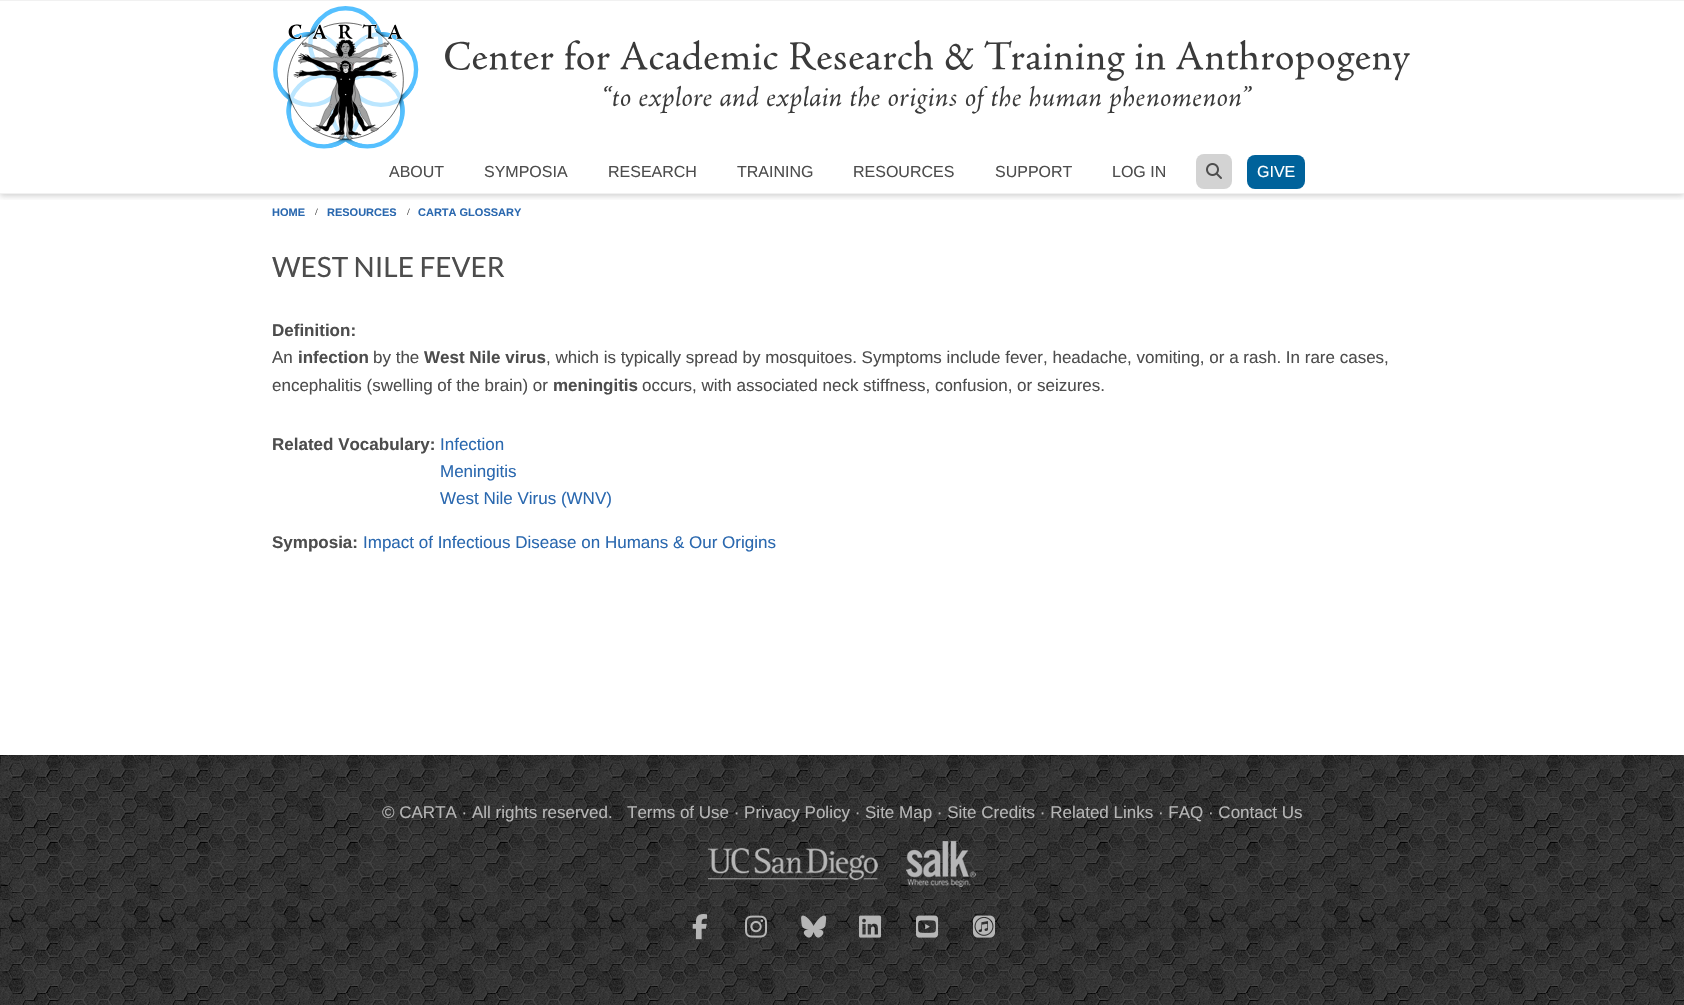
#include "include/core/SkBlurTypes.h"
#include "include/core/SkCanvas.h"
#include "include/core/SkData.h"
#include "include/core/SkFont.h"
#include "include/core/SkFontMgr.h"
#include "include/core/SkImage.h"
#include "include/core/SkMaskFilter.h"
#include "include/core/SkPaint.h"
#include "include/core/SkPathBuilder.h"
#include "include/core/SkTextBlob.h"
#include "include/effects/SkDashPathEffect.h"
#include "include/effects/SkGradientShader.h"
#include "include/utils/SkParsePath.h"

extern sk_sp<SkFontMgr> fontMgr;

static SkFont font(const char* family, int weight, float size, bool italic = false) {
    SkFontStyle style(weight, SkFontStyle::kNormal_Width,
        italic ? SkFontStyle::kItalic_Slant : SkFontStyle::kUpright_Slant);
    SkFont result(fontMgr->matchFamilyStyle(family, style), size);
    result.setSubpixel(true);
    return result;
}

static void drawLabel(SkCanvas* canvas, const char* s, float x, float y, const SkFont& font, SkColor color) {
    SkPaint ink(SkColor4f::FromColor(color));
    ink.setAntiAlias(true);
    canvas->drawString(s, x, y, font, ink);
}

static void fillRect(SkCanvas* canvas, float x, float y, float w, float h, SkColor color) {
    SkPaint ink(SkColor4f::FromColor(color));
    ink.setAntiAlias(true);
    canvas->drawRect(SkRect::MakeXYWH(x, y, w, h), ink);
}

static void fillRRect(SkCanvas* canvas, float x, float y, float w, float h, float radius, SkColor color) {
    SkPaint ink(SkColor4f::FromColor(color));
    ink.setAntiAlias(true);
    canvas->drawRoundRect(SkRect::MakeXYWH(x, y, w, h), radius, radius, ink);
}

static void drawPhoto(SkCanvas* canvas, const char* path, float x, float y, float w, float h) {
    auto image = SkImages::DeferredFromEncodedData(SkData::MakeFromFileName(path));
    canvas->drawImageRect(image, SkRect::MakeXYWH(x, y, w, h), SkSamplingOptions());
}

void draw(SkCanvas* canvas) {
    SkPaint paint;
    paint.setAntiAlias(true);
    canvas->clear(0xFFFFFFFF);
    canvas->save();
    canvas->clipRect(SkRect::MakeXYWH(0, 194, 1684, 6));
    paint.setColor(0x4D646464);
    paint.setMaskFilter(SkMaskFilter::MakeBlur(kNormal_SkBlurStyle, 3));
    canvas->drawRect(SkRect::MakeXYWH(0, 2, 1684, 194), paint);
    paint.setMaskFilter(nullptr);
    canvas->restore();
    fillRect(canvas, 0, 0, 1684, 1, 0xFFF1F1F1);
    fillRect(canvas, 0, 193, 1684, 1, 0xFFF1F1F1);
    drawPhoto(canvas, "assets/img1.png", 273, 6, 1137, 143);
    SkFont font1 = font("Liberation Sans", 400, 16);
    drawLabel(canvas, "ABOUT", 389, 177, font1, 0xFF4D4D4D);
    drawLabel(canvas, "SYMPOSIA", 484, 177, font1, 0xFF4D4D4D);
    drawLabel(canvas, "RESEARCH", 608, 177, font1, 0xFF4D4D4D);
    drawLabel(canvas, "TRAINING", 737, 177, font1, 0xFF4D4D4D);
    drawLabel(canvas, "RESOURCES", 853, 177, font1, 0xFF4D4D4D);
    drawLabel(canvas, "SUPPORT", 995, 177, font1, 0xFF4D4D4D);
    drawLabel(canvas, "LOG IN", 1112, 177, font1, 0xFF4D4D4D);
    fillRRect(canvas, 1196, 154, 36, 35, 8, 0xFFD3D3D3);
    drawPhoto(canvas, "assets/img2.png", 1206, 163, 16, 16);
    fillRRect(canvas, 1247, 155, 58, 34, 8, 0xFF00629B);
    drawLabel(canvas, "GIVE", 1257, 177, font1, 0xFFFFFFFF);
    SkFont font2 = font("Liberation Sans", 700, 11);
    drawLabel(canvas, "HOME", 272, 216, font2, 0xFF2A68AF);
    SkFont font3 = font("Liberation Serif", 400, 10);
    drawLabel(canvas, "/", 315, 215, font3, 0xFF1E1E1E);
    drawLabel(canvas, "RESOURCES", 327, 216, font2, 0xFF2A68AF);
    drawLabel(canvas, "/", 407, 215, font3, 0xFF1E1E1E);
    drawLabel(canvas, "CARTA GLOSSARY", 418, 216, font2, 0xFF2A68AF);
    SkFont font4 = font("Lato", 400, 28);
    drawLabel(canvas, "WEST NILE FEVER", 272, 277, font4, 0xFF4D4D4D);
    SkFont font5 = font("Liberation Sans", 700, 17);
    drawLabel(canvas, "Definition:", 272, 336, font5, 0xFF4D4D4D);
    SkFont font6 = font("Liberation Sans", 400, 17);
    drawLabel(canvas, "An", 272, 363, font6, 0xFF4D4D4D);
    drawLabel(canvas, "infection", 298, 363, font5, 0xFF4D4D4D);
    drawLabel(canvas, "by the", 373, 363, font6, 0xFF4D4D4D);
    drawLabel(canvas, "West Nile virus", 424, 363, font5, 0xFF4D4D4D);
    drawLabel(canvas, ", which is typically spread by mosquitoes. Symptoms include fever, headache, vomiting, or a rash. In rare cases,", 546, 363, font6, 0xFF4D4D4D);
    drawLabel(canvas, "encephalitis (swelling of the brain) or", 272, 391, font6, 0xFF4D4D4D);
    drawLabel(canvas, "meningitis", 553, 391, font5, 0xFF4D4D4D);
    drawLabel(canvas, "occurs, with associated neck stiffness, confusion, or seizures.", 642, 391, font6, 0xFF4D4D4D);
    drawLabel(canvas, "Related Vocabulary:", 272, 450, font5, 0xFF4D4D4D);
    drawLabel(canvas, "Infection", 440, 450, font6, 0xFF2A68AF);
    drawLabel(canvas, "Meningitis", 440, 477, font6, 0xFF2A68AF);
    drawLabel(canvas, "West Nile Virus (WNV)", 440, 504, font6, 0xFF2A68AF);
    drawLabel(canvas, "Symposia:", 272, 548, font5, 0xFF4D4D4D);
    drawLabel(canvas, "Impact of Infectious Disease on Humans & Our Origins", 363, 548, font6, 0xFF2A68AF);
    drawPhoto(canvas, "assets/img3.png", 0, 755, 1684, 250);
    drawLabel(canvas, "© CARTA · All rights reserved.", 382, 818, font6, 0xFFB6B6B6);
    drawLabel(canvas, "Terms of Use · Privacy Policy · Site Map · Site Credits · Related Links · FAQ · Contact Us", 627, 818, font6, 0xFFB6B6B6);
    drawPhoto(canvas, "assets/img4.png", 708, 848, 170, 32);
    drawPhoto(canvas, "assets/img5.png", 906, 841, 70, 46);
    drawPhoto(canvas, "assets/img6.png", 692, 914, 16, 26);
    drawPhoto(canvas, "assets/img7.png", 745, 915, 23, 23);
    drawPhoto(canvas, "assets/img8.png", 801, 915, 26, 23);
    drawPhoto(canvas, "assets/img9.png", 859, 915, 23, 23);
    drawPhoto(canvas, "assets/img10.png", 916, 915, 23, 23);
    drawPhoto(canvas, "assets/img11.png", 973, 915, 23, 23);
}
